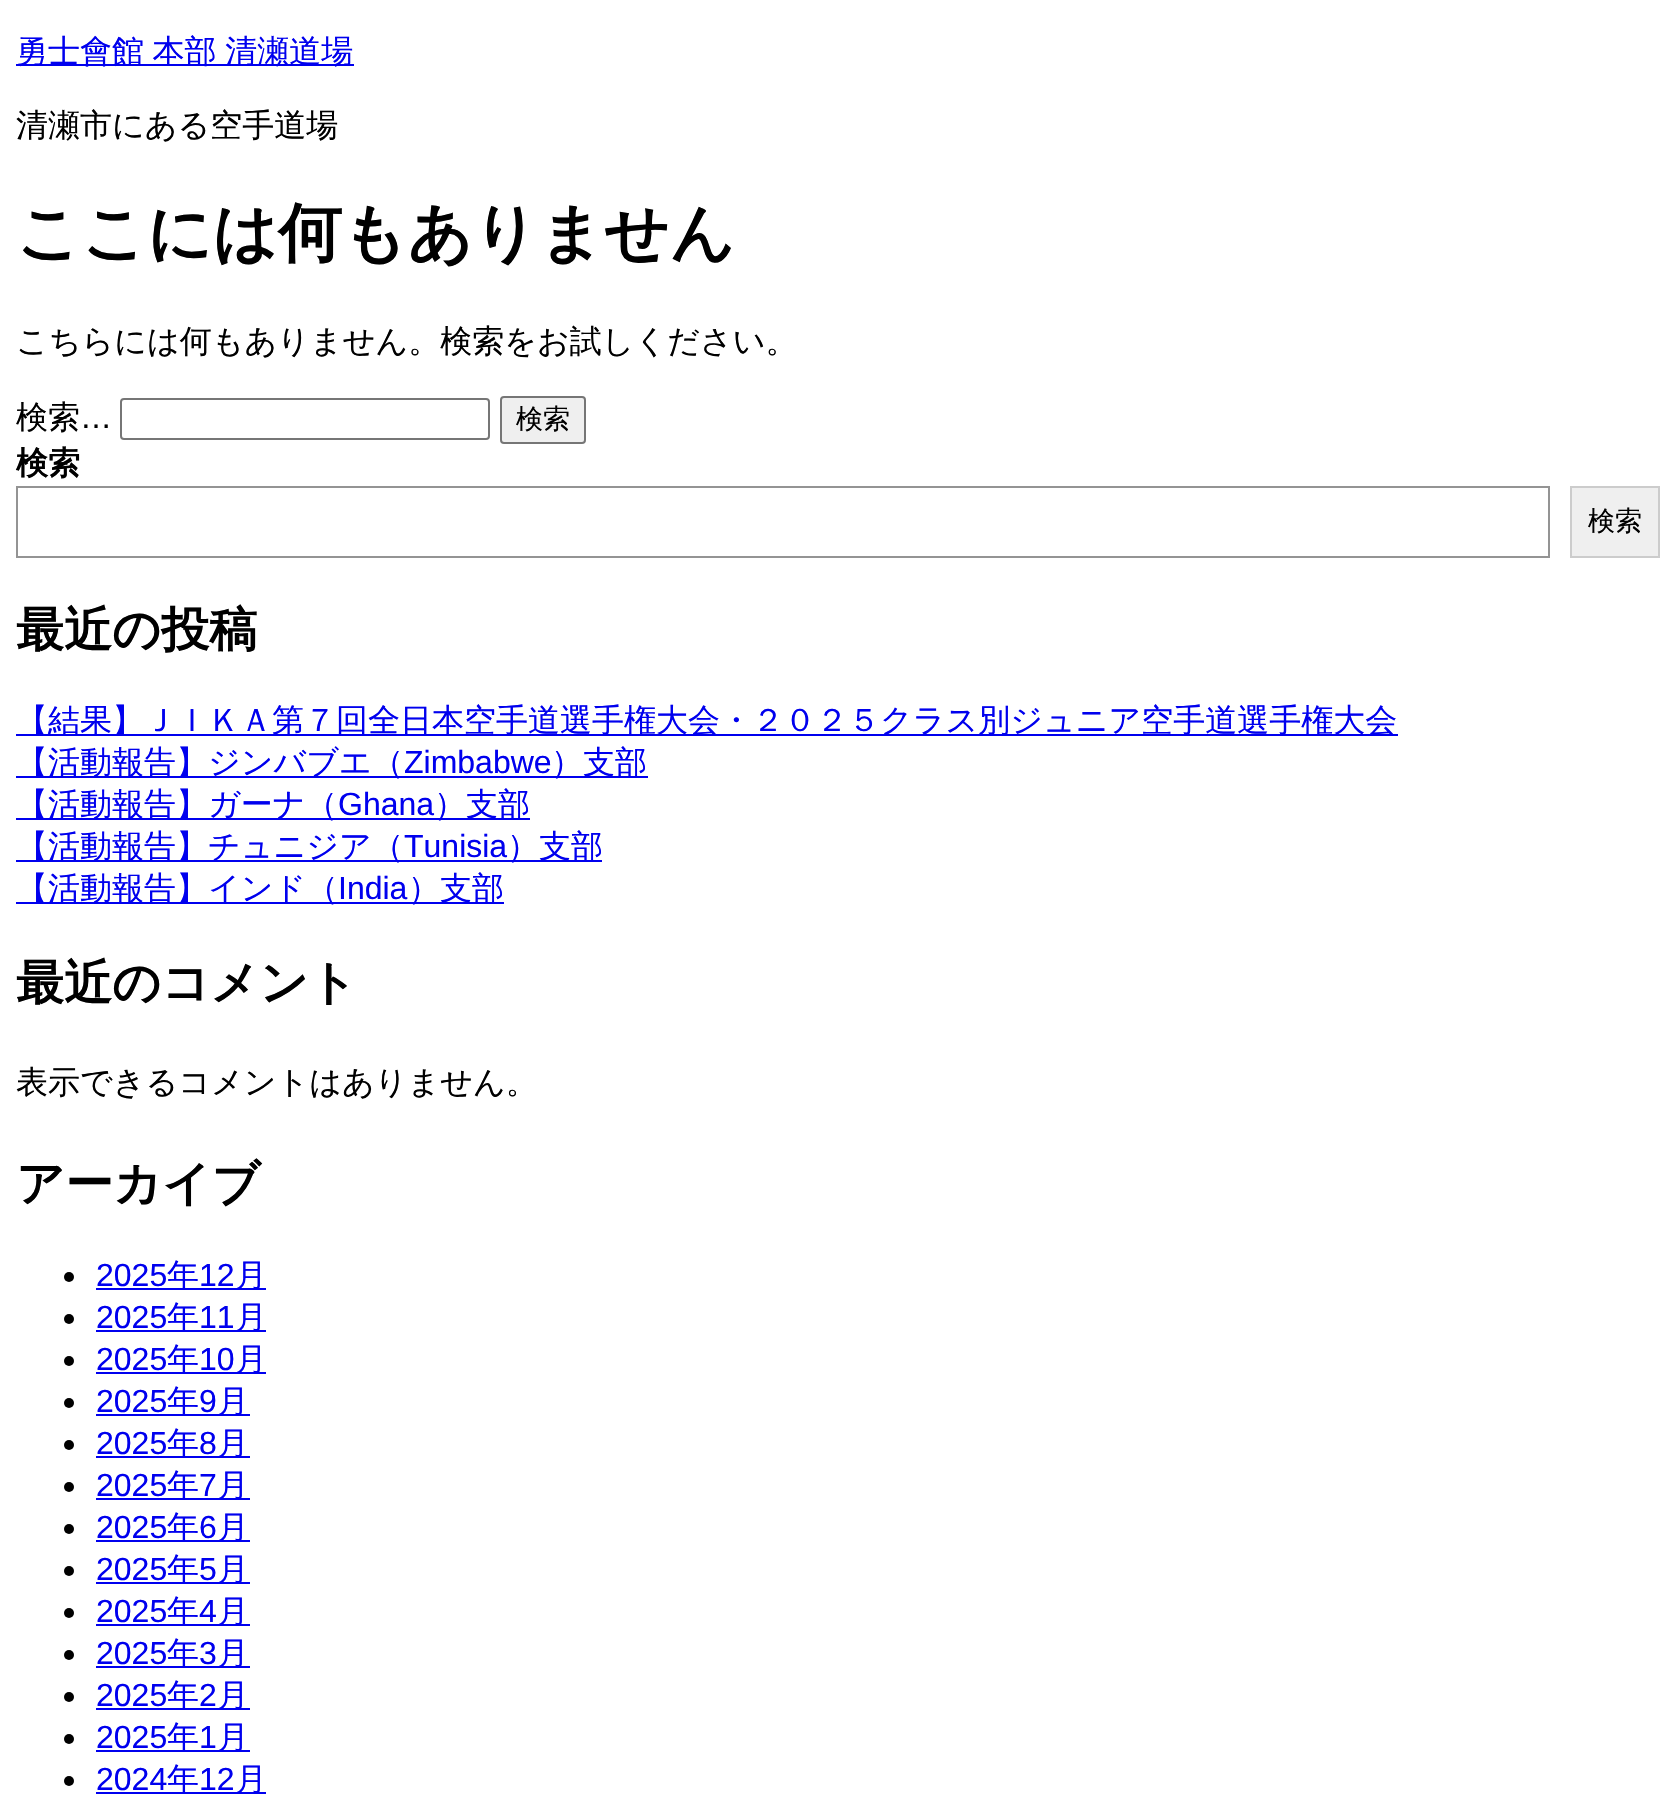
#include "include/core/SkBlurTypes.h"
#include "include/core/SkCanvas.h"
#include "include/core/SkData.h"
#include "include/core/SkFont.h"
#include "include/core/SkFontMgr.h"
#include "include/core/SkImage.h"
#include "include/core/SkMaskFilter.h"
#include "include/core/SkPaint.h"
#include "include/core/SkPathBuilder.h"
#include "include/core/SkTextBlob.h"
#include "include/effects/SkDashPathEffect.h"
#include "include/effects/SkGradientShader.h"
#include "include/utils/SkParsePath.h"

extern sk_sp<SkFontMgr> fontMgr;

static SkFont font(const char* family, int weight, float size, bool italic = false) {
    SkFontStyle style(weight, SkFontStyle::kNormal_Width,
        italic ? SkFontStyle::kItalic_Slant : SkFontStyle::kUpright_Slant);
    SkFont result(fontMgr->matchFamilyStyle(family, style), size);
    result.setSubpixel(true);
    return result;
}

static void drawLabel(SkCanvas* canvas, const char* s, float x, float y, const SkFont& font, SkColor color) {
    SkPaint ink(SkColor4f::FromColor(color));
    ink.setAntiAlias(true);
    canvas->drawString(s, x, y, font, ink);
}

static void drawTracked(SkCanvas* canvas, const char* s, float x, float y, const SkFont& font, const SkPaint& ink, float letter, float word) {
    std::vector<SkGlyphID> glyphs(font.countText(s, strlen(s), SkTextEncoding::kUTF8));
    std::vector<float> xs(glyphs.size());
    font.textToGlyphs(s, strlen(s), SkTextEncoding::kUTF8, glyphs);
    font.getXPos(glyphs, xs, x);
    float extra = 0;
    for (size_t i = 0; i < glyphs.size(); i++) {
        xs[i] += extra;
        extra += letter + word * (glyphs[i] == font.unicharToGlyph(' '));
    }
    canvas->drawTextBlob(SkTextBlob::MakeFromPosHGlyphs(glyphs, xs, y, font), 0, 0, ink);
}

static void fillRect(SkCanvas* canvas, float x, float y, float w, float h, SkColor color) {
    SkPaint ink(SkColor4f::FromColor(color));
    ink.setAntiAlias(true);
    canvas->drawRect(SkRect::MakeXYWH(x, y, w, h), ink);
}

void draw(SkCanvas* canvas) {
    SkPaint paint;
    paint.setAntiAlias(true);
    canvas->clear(0xFFFFFFFF);
    fillRect(canvas, 16, 64, 338, 2, 0xFF0000EE);
    SkFont font1 = font("WenQuanYi Zen Hei", 500, 32);
    paint.setColor(0xFF0000EE);
    drawTracked(canvas, "勇士會館 本部 清瀬道場", 16, 62, font1, paint, 0, -1);
    drawLabel(canvas, "清瀬市にある空手道場", 16, 136, font1, 0xFF000000);
    SkFont font2 = font("WenQuanYi Zen Hei", 700, 64);
    drawLabel(canvas, "ここには何もありません", 16, 255, font2, 0xFF000000);
    drawLabel(canvas, "こちらには何もありません。検索をお試しください。", 16, 352, font1, 0xFF000000);
    drawLabel(canvas, "検索", 16, 428, font1, 0xFF000000);
    SkFont font3 = font("Liberation Sans", 400, 32);
    drawLabel(canvas, "…", 80, 428, font3, 0xFF000000);
    paint.setStroke(true);
    paint.setStrokeWidth(2);
    paint.setColor(0xFF767676);
    canvas->drawRoundRect(SkRect::MakeXYWH(121, 399, 368, 40), 3, 3, paint);
    paint.setStroke(false);
    paint.setColor(0xFFEFEFEF);
    canvas->drawRoundRect(SkRect::MakeXYWH(501, 397, 84, 46), 3, 3, paint);
    paint.setStroke(true);
    paint.setColor(0xFF767676);
    canvas->drawRoundRect(SkRect::MakeXYWH(501, 397, 84, 46), 3, 3, paint);
    SkFont font4 = font("WenQuanYi Zen Hei", 500, 27);
    drawLabel(canvas, "検索", 516, 428, font4, 0xFF000000);
    SkFont font5 = font("WenQuanYi Zen Hei", 700, 32);
    drawLabel(canvas, "検索", 16, 474, font5, 0xFF000000);
    paint.setColor(0xFF949494);
    canvas->drawRect(SkRect::MakeXYWH(17, 487, 1532, 70), paint);
    paint.setStroke(false);
    paint.setColor(0xFFEFEFEF);
    canvas->drawRect(SkRect::MakeXYWH(1571, 487, 88, 70), paint);
    paint.setStroke(true);
    paint.setColor(0xFFCCCCCC);
    canvas->drawRect(SkRect::MakeXYWH(1571, 487, 88, 70), paint);
    drawLabel(canvas, "検索", 1588, 530, font4, 0xFF000000);
    SkFont font6 = font("WenQuanYi Zen Hei", 700, 48);
    drawLabel(canvas, "最近の投稿", 16, 646, font6, 0xFF000000);
    fillRect(canvas, 16, 734, 1382, 2, 0xFF0000EE);
    drawLabel(canvas, "【結果】ＪＩＫＡ第７回全日本空手道選手権大会・２０２５クラス別ジュニア空手道選手権大会", 16, 731, font1, 0xFF0000EE);
    fillRect(canvas, 16, 776, 632, 2, 0xFF0000EE);
    drawLabel(canvas, "【活動報告】ジンバブエ（", 16, 773, font1, 0xFF0000EE);
    drawLabel(canvas, "Zimbabwe", 404, 773, font3, 0xFF0000EE);
    drawLabel(canvas, "）支部", 551, 773, font1, 0xFF0000EE);
    fillRect(canvas, 16, 818, 514, 2, 0xFF0000EE);
    drawLabel(canvas, "【活動報告】ガーナ（", 16, 815, font1, 0xFF0000EE);
    drawLabel(canvas, "Ghana", 338, 815, font3, 0xFF0000EE);
    drawLabel(canvas, "）支部", 434, 815, font1, 0xFF0000EE);
    fillRect(canvas, 16, 860, 586, 2, 0xFF0000EE);
    drawLabel(canvas, "【活動報告】チュニジア（", 16, 857, font1, 0xFF0000EE);
    drawLabel(canvas, "Tunisia", 404, 857, font3, 0xFF0000EE);
    drawLabel(canvas, "）支部", 507, 857, font1, 0xFF0000EE);
    fillRect(canvas, 16, 902, 488, 2, 0xFF0000EE);
    drawLabel(canvas, "【活動報告】インド（", 16, 899, font1, 0xFF0000EE);
    drawLabel(canvas, "India", 338, 899, font3, 0xFF0000EE);
    drawLabel(canvas, "）支部", 408, 899, font1, 0xFF0000EE);
    drawLabel(canvas, "最近のコメント", 16, 999, font6, 0xFF000000);
    drawLabel(canvas, "表示できるコメントはありません。", 16, 1093, font1, 0xFF000000);
    drawLabel(canvas, "アーカイブ", 16, 1200, font6, 0xFF000000);
    paint.setStroke(false);
    paint.setColor(0xFF000000);
    canvas->drawCircle(69, 1277, 5, paint);
    drawLabel(canvas, "2025", 96, 1286, font3, 0xFF0000EE);
    fillRect(canvas, 96, 1288, 170, 2, 0xFF0000EE);
    drawLabel(canvas, "年", 167, 1286, font1, 0xFF0000EE);
    drawLabel(canvas, "12", 199, 1286, font3, 0xFF0000EE);
    drawLabel(canvas, "月", 235, 1286, font1, 0xFF0000EE);
    canvas->drawCircle(69, 1319, 5, paint);
    drawLabel(canvas, "2025", 96, 1328, font3, 0xFF0000EE);
    fillRect(canvas, 96, 1330, 170, 2, 0xFF0000EE);
    drawLabel(canvas, "年", 167, 1328, font1, 0xFF0000EE);
    drawLabel(canvas, "11", 199, 1328, font3, 0xFF0000EE);
    drawLabel(canvas, "月", 235, 1328, font1, 0xFF0000EE);
    canvas->drawCircle(69, 1361, 5, paint);
    drawLabel(canvas, "2025", 96, 1370, font3, 0xFF0000EE);
    fillRect(canvas, 96, 1372, 170, 2, 0xFF0000EE);
    drawLabel(canvas, "年", 167, 1370, font1, 0xFF0000EE);
    drawLabel(canvas, "10", 199, 1370, font3, 0xFF0000EE);
    drawLabel(canvas, "月", 235, 1370, font1, 0xFF0000EE);
    canvas->drawCircle(69, 1403, 5, paint);
    drawLabel(canvas, "2025", 96, 1412, font3, 0xFF0000EE);
    fillRect(canvas, 96, 1414, 154, 2, 0xFF0000EE);
    drawLabel(canvas, "年", 167, 1412, font1, 0xFF0000EE);
    drawLabel(canvas, "9", 199, 1412, font3, 0xFF0000EE);
    drawLabel(canvas, "月", 217, 1412, font1, 0xFF0000EE);
    canvas->drawCircle(69, 1445, 5, paint);
    drawLabel(canvas, "2025", 96, 1454, font3, 0xFF0000EE);
    fillRect(canvas, 96, 1456, 154, 2, 0xFF0000EE);
    drawLabel(canvas, "年", 167, 1454, font1, 0xFF0000EE);
    drawLabel(canvas, "8", 199, 1454, font3, 0xFF0000EE);
    drawLabel(canvas, "月", 217, 1454, font1, 0xFF0000EE);
    canvas->drawCircle(69, 1487, 5, paint);
    drawLabel(canvas, "2025", 96, 1496, font3, 0xFF0000EE);
    fillRect(canvas, 96, 1498, 154, 2, 0xFF0000EE);
    drawLabel(canvas, "年", 167, 1496, font1, 0xFF0000EE);
    drawLabel(canvas, "7", 199, 1496, font3, 0xFF0000EE);
    drawLabel(canvas, "月", 217, 1496, font1, 0xFF0000EE);
    canvas->drawCircle(69, 1529, 5, paint);
    drawLabel(canvas, "2025", 96, 1538, font3, 0xFF0000EE);
    fillRect(canvas, 96, 1540, 154, 2, 0xFF0000EE);
    drawLabel(canvas, "年", 167, 1538, font1, 0xFF0000EE);
    drawLabel(canvas, "6", 199, 1538, font3, 0xFF0000EE);
    drawLabel(canvas, "月", 217, 1538, font1, 0xFF0000EE);
    canvas->drawCircle(69, 1571, 5, paint);
    drawLabel(canvas, "2025", 96, 1580, font3, 0xFF0000EE);
    fillRect(canvas, 96, 1582, 154, 2, 0xFF0000EE);
    drawLabel(canvas, "年", 167, 1580, font1, 0xFF0000EE);
    drawLabel(canvas, "5", 199, 1580, font3, 0xFF0000EE);
    drawLabel(canvas, "月", 217, 1580, font1, 0xFF0000EE);
    canvas->drawCircle(69, 1613, 5, paint);
    drawLabel(canvas, "2025", 96, 1622, font3, 0xFF0000EE);
    fillRect(canvas, 96, 1624, 154, 2, 0xFF0000EE);
    drawLabel(canvas, "年", 167, 1622, font1, 0xFF0000EE);
    drawLabel(canvas, "4", 199, 1622, font3, 0xFF0000EE);
    drawLabel(canvas, "月", 217, 1622, font1, 0xFF0000EE);
    canvas->drawCircle(69, 1655, 5, paint);
    drawLabel(canvas, "2025", 96, 1664, font3, 0xFF0000EE);
    fillRect(canvas, 96, 1666, 154, 2, 0xFF0000EE);
    drawLabel(canvas, "年", 167, 1664, font1, 0xFF0000EE);
    drawLabel(canvas, "3", 199, 1664, font3, 0xFF0000EE);
    drawLabel(canvas, "月", 217, 1664, font1, 0xFF0000EE);
    canvas->drawCircle(69, 1697, 5, paint);
    drawLabel(canvas, "2025", 96, 1706, font3, 0xFF0000EE);
    fillRect(canvas, 96, 1708, 154, 2, 0xFF0000EE);
    drawLabel(canvas, "年", 167, 1706, font1, 0xFF0000EE);
    drawLabel(canvas, "2", 199, 1706, font3, 0xFF0000EE);
    drawLabel(canvas, "月", 217, 1706, font1, 0xFF0000EE);
    canvas->drawCircle(69, 1739, 5, paint);
    drawLabel(canvas, "2025", 96, 1748, font3, 0xFF0000EE);
    fillRect(canvas, 96, 1750, 154, 2, 0xFF0000EE);
    drawLabel(canvas, "年", 167, 1748, font1, 0xFF0000EE);
    drawLabel(canvas, "1", 199, 1748, font3, 0xFF0000EE);
    drawLabel(canvas, "月", 217, 1748, font1, 0xFF0000EE);
    canvas->drawCircle(69, 1781, 5, paint);
    drawLabel(canvas, "2024", 96, 1790, font3, 0xFF0000EE);
    fillRect(canvas, 96, 1792, 170, 2, 0xFF0000EE);
    drawLabel(canvas, "年", 167, 1790, font1, 0xFF0000EE);
    drawLabel(canvas, "12", 199, 1790, font3, 0xFF0000EE);
    drawLabel(canvas, "月", 235, 1790, font1, 0xFF0000EE);
}
